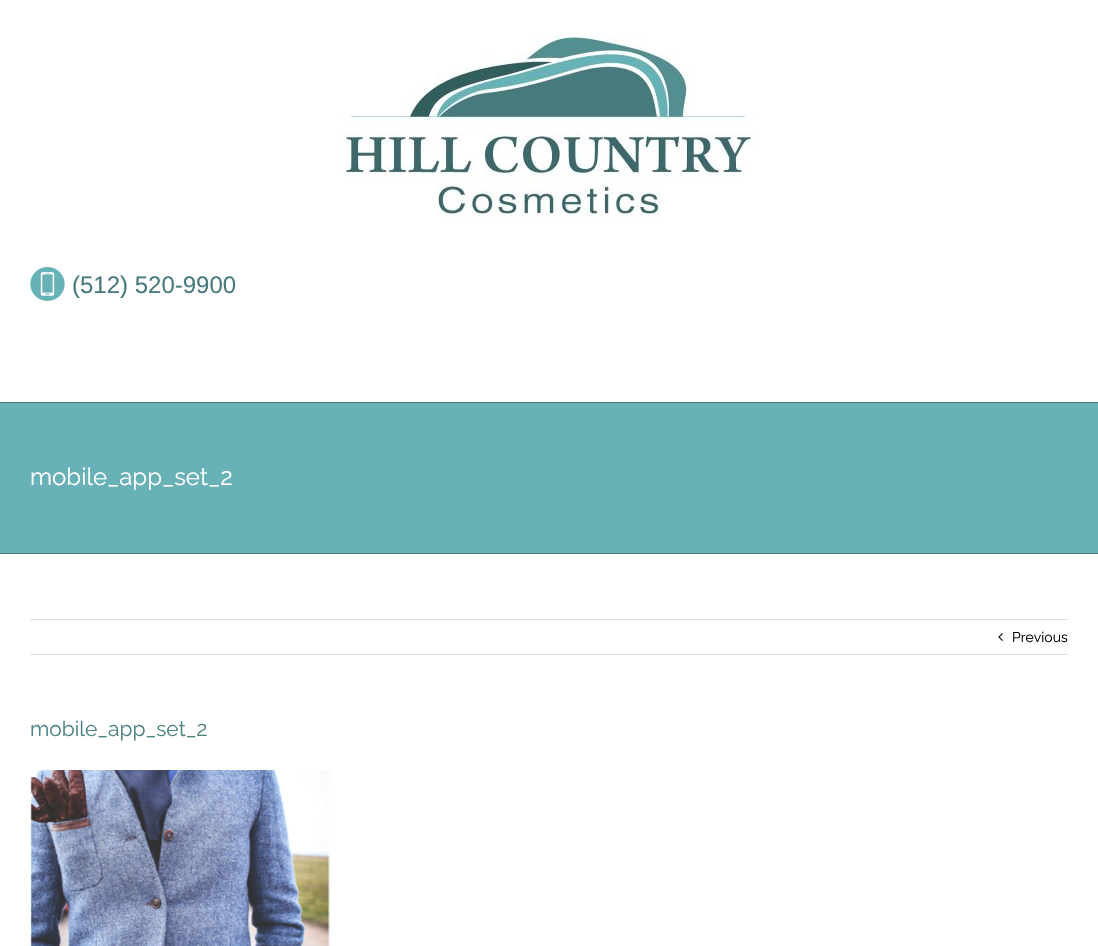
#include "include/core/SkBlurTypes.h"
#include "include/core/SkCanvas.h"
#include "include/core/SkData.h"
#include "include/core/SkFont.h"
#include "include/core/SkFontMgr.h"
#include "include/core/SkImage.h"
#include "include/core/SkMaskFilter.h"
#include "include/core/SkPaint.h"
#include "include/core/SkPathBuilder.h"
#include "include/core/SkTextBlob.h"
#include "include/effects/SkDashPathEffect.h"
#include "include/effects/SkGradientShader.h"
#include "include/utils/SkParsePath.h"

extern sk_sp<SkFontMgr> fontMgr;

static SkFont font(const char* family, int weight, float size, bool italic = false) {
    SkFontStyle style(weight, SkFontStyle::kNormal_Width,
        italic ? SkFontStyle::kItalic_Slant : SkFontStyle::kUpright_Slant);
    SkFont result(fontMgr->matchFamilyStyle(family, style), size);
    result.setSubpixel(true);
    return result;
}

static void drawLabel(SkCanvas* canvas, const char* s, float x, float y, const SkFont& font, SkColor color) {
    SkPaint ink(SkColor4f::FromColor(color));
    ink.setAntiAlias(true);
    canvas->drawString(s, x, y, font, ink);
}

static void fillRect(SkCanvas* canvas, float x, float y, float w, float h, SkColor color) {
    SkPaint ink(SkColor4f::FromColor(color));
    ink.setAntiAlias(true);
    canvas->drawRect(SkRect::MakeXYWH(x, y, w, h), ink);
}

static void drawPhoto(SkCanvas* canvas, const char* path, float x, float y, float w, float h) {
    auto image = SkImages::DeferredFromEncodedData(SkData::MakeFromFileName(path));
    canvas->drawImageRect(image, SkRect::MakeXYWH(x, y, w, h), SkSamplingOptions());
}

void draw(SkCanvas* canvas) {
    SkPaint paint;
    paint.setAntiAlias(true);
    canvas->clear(0xFFFFFFFF);
    drawPhoto(canvas, "assets/img1.png", 341, 36, 415, 189);
    drawPhoto(canvas, "assets/img2.png", 30, 267, 35, 34);
    SkFont font1 = font("Liberation Sans", 400, 24);
    drawLabel(canvas, "(512) 520-9900", 72, 293, font1, 0xFF477A7D);
    fillRect(canvas, 0, 403, 1098, 150, 0xFF68B1B7);
    fillRect(canvas, 0, 402, 1098, 1, 0xFF477A7D);
    fillRect(canvas, 0, 553, 1098, 1, 0xFF477A7D);
    SkFont font2 = font("Raleway", 400, 24);
    drawLabel(canvas, "mobile_app_set_2", 30, 485, font2, 0xFFFFFFFF);
    fillRect(canvas, 30, 619, 1038, 1, 0xFFE0DEDE);
    fillRect(canvas, 30, 654, 1038, 1, 0xFFE0DEDE);
    drawPhoto(canvas, "assets/img3.png", 998, 633, 5, 8);
    SkFont font3 = font("Raleway", 400, 14);
    drawLabel(canvas, "Previous", 1012, 642, font3, 0xFF000000);
    SkFont font4 = font("Raleway", 400, 21);
    drawLabel(canvas, "mobile_app_set_2", 30, 736, font4, 0xFF4E8282);
    drawPhoto(canvas, "assets/img4.png", 30, 770, 300, 176);
}
